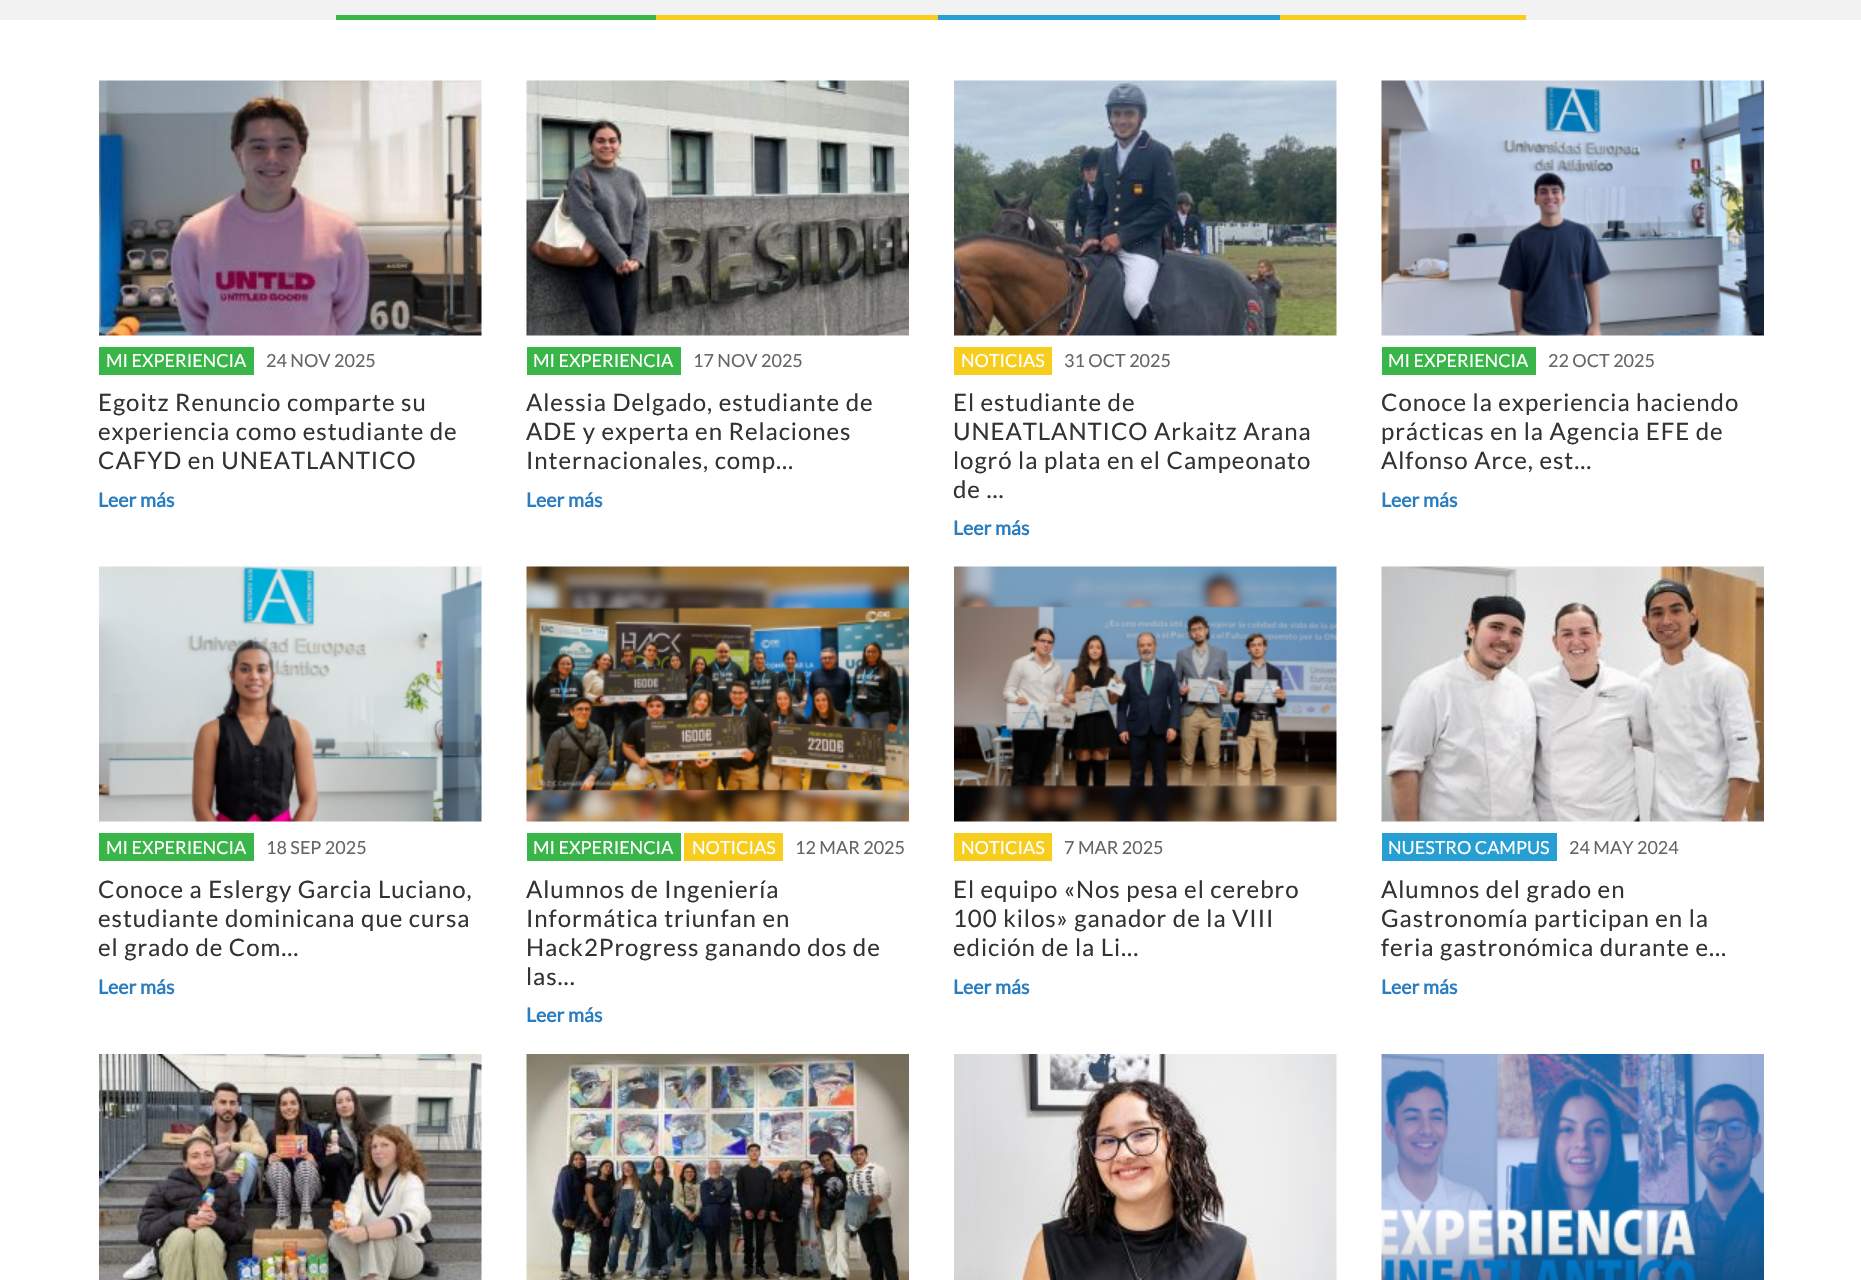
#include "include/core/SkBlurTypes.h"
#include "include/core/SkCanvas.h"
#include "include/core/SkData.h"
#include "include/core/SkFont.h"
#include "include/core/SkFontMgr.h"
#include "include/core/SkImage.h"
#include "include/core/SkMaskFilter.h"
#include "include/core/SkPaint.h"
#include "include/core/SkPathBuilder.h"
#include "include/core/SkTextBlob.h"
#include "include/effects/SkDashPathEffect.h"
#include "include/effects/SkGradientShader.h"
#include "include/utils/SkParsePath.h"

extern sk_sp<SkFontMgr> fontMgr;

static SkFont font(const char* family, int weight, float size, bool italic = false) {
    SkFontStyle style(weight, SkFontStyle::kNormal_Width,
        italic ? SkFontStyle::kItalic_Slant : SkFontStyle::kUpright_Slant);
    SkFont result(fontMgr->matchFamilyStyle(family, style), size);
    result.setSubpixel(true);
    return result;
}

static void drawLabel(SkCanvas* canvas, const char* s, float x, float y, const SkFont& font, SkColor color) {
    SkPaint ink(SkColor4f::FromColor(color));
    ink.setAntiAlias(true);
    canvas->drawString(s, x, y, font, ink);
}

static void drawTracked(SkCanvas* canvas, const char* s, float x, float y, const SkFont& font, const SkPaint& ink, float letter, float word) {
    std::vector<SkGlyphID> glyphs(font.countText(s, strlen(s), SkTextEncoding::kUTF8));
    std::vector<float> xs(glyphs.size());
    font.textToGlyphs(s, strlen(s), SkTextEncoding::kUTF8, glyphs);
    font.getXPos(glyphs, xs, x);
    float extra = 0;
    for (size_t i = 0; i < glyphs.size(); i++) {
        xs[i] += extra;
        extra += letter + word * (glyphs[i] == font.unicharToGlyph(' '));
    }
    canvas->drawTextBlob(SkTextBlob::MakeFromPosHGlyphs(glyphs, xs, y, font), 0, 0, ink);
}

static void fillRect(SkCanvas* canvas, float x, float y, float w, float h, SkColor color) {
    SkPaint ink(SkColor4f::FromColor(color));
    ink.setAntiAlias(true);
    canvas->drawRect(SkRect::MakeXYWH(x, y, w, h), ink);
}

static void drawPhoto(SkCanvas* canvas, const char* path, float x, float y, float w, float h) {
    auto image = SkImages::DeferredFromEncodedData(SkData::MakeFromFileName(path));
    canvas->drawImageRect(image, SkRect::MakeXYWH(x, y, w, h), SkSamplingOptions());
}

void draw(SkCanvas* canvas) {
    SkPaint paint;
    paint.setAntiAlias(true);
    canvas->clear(0xFFFFFFFF);
    fillRect(canvas, 0, 0, 1861, 20, 0xFFF2F2F2);
    fillRect(canvas, 336, 15, 320, 5, 0xFF39B54A);
    fillRect(canvas, 656, 15, 282, 5, 0xFFF7CD1F);
    fillRect(canvas, 938, 15, 342, 5, 0xFF289FD2);
    fillRect(canvas, 1280, 15, 246, 5, 0xFFF7CD1F);
    drawPhoto(canvas, "assets/img1.png", 99, 80, 383, 256);
    fillRect(canvas, 99, 347, 155, 28, 0xFF39B54A);
    SkFont font1 = font("Lato", 400, 18);
    drawLabel(canvas, "MI EXPERIENCIA", 106, 367, font1, 0xFFFFFFFF);
    drawLabel(canvas, "24 NOV 2025", 266, 367, font1, 0xFF666666);
    SkFont font2 = font("Lato", 400, 24);
    paint.setColor(0xFF333333);
    drawTracked(canvas, "Egoitz Renuncio comparte su", 98, 411, font2, paint, 0.95f, 0);
    drawTracked(canvas, "experiencia como estudiante de", 98, 440, font2, paint, 0.95f, 0);
    drawTracked(canvas, "CAFYD en UNEATLANTICO", 98, 469, font2, paint, 0.95f, 0);
    SkFont font3 = font("Lato", 700, 19.5f);
    drawLabel(canvas, "Leer más", 98, 507, font3, 0xFF287CC0);
    drawPhoto(canvas, "assets/img2.png", 526, 80, 383, 256);
    fillRect(canvas, 527, 347, 154, 28, 0xFF39B54A);
    drawLabel(canvas, "MI EXPERIENCIA", 533, 367, font1, 0xFFFFFFFF);
    drawLabel(canvas, "17 NOV 2025", 693, 367, font1, 0xFF666666);
    drawTracked(canvas, "Alessia Delgado, estudiante de", 526, 411, font2, paint, 0.95f, 0);
    drawTracked(canvas, "ADE y experta en Relaciones", 526, 440, font2, paint, 0.95f, 0);
    drawTracked(canvas, "Internacionales, comp...", 526, 469, font2, paint, 0.95f, 0);
    drawLabel(canvas, "Leer más", 526, 507, font3, 0xFF287CC0);
    drawPhoto(canvas, "assets/img3.png", 954, 80, 383, 256);
    fillRect(canvas, 954, 347, 98, 28, 0xFFF7CD1F);
    drawLabel(canvas, "NOTICIAS", 961, 367, font1, 0xFFFFFFFF);
    drawLabel(canvas, "31 OCT 2025", 1064, 367, font1, 0xFF666666);
    drawTracked(canvas, "El estudiante de", 953, 411, font2, paint, 0.95f, 0);
    drawTracked(canvas, "UNEATLANTICO Arkaitz Arana", 953, 440, font2, paint, 0.95f, 0);
    drawTracked(canvas, "logró la plata en el Campeonato", 953, 469, font2, paint, 0.95f, 0);
    drawTracked(canvas, "de ...", 953, 498, font2, paint, 0.95f, 0);
    drawLabel(canvas, "Leer más", 953, 535, font3, 0xFF287CC0);
    drawPhoto(canvas, "assets/img4.png", 1381, 80, 383, 256);
    fillRect(canvas, 1382, 347, 154, 28, 0xFF39B54A);
    drawLabel(canvas, "MI EXPERIENCIA", 1388, 367, font1, 0xFFFFFFFF);
    drawLabel(canvas, "22 OCT 2025", 1548, 367, font1, 0xFF666666);
    drawTracked(canvas, "Conoce la experiencia haciendo", 1381, 411, font2, paint, 0.95f, 0);
    drawTracked(canvas, "prácticas en la Agencia EFE de", 1381, 440, font2, paint, 0.95f, 0);
    drawTracked(canvas, "Alfonso Arce, est...", 1381, 469, font2, paint, 0.95f, 0);
    drawLabel(canvas, "Leer más", 1381, 507, font3, 0xFF287CC0);
    drawPhoto(canvas, "assets/img5.png", 99, 566, 383, 256);
    fillRect(canvas, 99, 833, 155, 28, 0xFF39B54A);
    drawLabel(canvas, "MI EXPERIENCIA", 106, 854, font1, 0xFFFFFFFF);
    drawLabel(canvas, "18 SEP 2025", 266, 854, font1, 0xFF666666);
    drawTracked(canvas, "Conoce a Eslergy Garcia Luciano,", 98, 898, font2, paint, 0.95f, 0);
    drawTracked(canvas, "estudiante dominicana que cursa", 98, 927, font2, paint, 0.95f, 0);
    drawTracked(canvas, "el grado de Com...", 98, 956, font2, paint, 0.95f, 0);
    drawLabel(canvas, "Leer más", 98, 994, font3, 0xFF287CC0);
    drawPhoto(canvas, "assets/img6.png", 526, 566, 383, 256);
    fillRect(canvas, 527, 833, 154, 28, 0xFF39B54A);
    drawLabel(canvas, "MI EXPERIENCIA", 533, 854, font1, 0xFFFFFFFF);
    fillRect(canvas, 684, 833, 99, 28, 0xFFF7CD1F);
    drawLabel(canvas, "NOTICIAS", 692, 854, font1, 0xFFFFFFFF);
    drawLabel(canvas, "12 MAR 2025", 795, 854, font1, 0xFF666666);
    drawTracked(canvas, "Alumnos de Ingeniería", 526, 898, font2, paint, 0.95f, 0);
    drawTracked(canvas, "Informática triunfan en", 526, 927, font2, paint, 0.95f, 0);
    drawTracked(canvas, "Hack2Progress ganando dos de", 526, 956, font2, paint, 0.95f, 0);
    drawTracked(canvas, "las...", 526, 985, font2, paint, 0.95f, 0);
    drawLabel(canvas, "Leer más", 526, 1022, font3, 0xFF287CC0);
    drawPhoto(canvas, "assets/img7.png", 954, 566, 383, 256);
    fillRect(canvas, 954, 833, 98, 28, 0xFFF7CD1F);
    drawLabel(canvas, "NOTICIAS", 961, 854, font1, 0xFFFFFFFF);
    drawLabel(canvas, "7 MAR 2025", 1064, 854, font1, 0xFF666666);
    drawTracked(canvas, "El equipo «Nos pesa el cerebro", 953, 898, font2, paint, 0.95f, 0);
    drawTracked(canvas, "100 kilos» ganador de la VIII", 953, 927, font2, paint, 0.95f, 0);
    drawTracked(canvas, "edición de la Li...", 953, 956, font2, paint, 0.95f, 0);
    drawLabel(canvas, "Leer más", 953, 994, font3, 0xFF287CC0);
    drawPhoto(canvas, "assets/img8.png", 1381, 566, 383, 256);
    fillRect(canvas, 1382, 833, 175, 28, 0xFF289FD2);
    drawLabel(canvas, "NUESTRO CAMPUS", 1388, 854, font1, 0xFFFFFFFF);
    drawLabel(canvas, "24 MAY 2024", 1569, 854, font1, 0xFF666666);
    drawTracked(canvas, "Alumnos del grado en", 1381, 898, font2, paint, 0.95f, 0);
    drawTracked(canvas, "Gastronomía participan en la", 1381, 927, font2, paint, 0.95f, 0);
    drawTracked(canvas, "feria gastronómica durante e...", 1381, 956, font2, paint, 0.95f, 0);
    drawLabel(canvas, "Leer más", 1381, 994, font3, 0xFF287CC0);
    drawPhoto(canvas, "assets/img9.png", 99, 1054, 383, 226);
    drawPhoto(canvas, "assets/img10.png", 526, 1054, 383, 226);
    drawPhoto(canvas, "assets/img11.png", 954, 1054, 383, 226);
    drawPhoto(canvas, "assets/img12.png", 1381, 1054, 383, 226);
}
